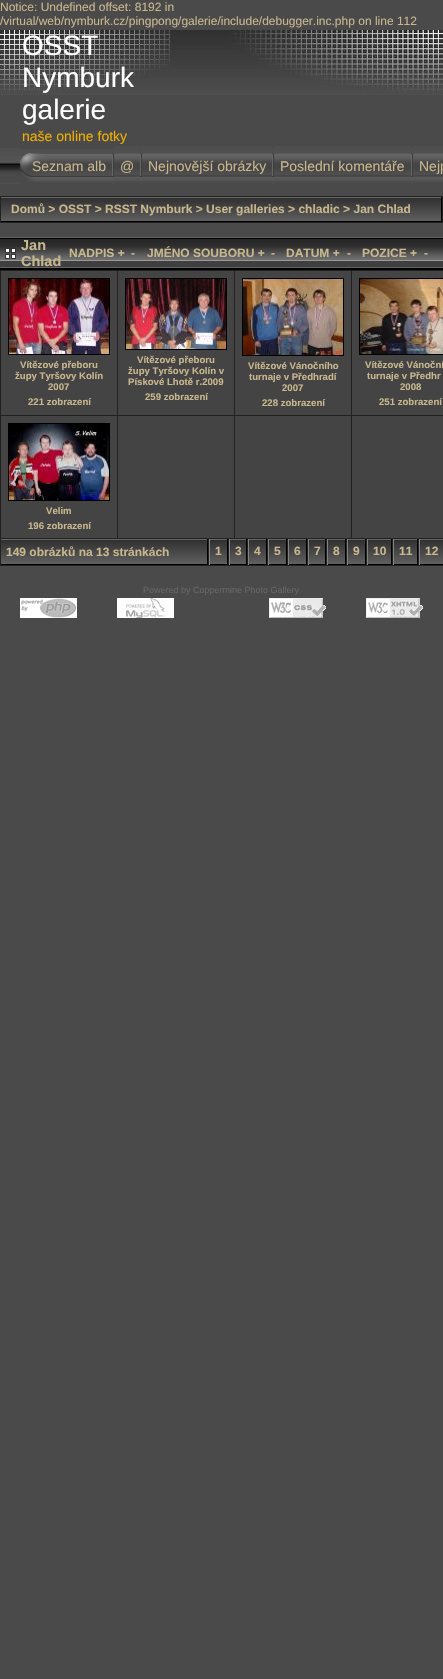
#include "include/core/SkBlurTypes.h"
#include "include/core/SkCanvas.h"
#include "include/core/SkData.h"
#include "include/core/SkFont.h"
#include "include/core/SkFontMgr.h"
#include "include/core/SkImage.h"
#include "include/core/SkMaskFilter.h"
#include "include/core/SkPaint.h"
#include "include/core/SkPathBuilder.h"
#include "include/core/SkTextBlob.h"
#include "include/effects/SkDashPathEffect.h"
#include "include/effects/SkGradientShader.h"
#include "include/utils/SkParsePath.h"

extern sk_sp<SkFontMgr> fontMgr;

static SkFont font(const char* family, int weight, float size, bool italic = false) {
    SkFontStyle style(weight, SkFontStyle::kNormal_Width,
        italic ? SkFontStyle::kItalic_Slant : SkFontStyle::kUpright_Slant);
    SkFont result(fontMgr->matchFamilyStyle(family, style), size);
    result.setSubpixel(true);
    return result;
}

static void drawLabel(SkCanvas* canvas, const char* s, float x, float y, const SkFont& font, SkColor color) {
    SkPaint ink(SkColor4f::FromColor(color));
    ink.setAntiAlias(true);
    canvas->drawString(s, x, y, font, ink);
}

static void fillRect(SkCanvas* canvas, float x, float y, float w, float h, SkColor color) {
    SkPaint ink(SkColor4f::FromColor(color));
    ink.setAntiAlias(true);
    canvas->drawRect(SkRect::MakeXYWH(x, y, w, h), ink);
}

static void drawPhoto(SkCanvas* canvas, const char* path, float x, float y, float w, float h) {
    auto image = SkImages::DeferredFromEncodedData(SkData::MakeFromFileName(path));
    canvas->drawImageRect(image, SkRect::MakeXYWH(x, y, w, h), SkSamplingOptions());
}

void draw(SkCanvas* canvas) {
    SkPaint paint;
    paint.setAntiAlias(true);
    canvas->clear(0xFF4A4A4A);
    SkFont font1 = font("Liberation Sans", 400, 12);
    drawLabel(canvas, "Notice: Undefined offset: 8192 in", 0, 11, font1, 0xFFC6B78E);
    drawLabel(canvas, "/virtual/web/nymburk.cz/pingpong/galerie/include/debugger.inc.php on line 112", 0, 25, font1, 0xFFC6B78E);
    drawPhoto(canvas, "assets/img1.png", 0, 94, 443, 1);
    drawPhoto(canvas, "assets/img2.png", 0, 30, 170, 64);
    drawPhoto(canvas, "assets/img3.png", 170, 30, 273, 64);
    SkFont font2 = font("Liberation Sans", 400, 28);
    drawLabel(canvas, "OSST", 22, 55, font2, 0xFFFFFFFF);
    drawLabel(canvas, "Nymburk", 22, 87, font2, 0xFFFFFFFF);
    drawLabel(canvas, "galerie", 22, 119, font2, 0xFFFFFFFF);
    SkFont font3 = font("Liberation Sans", 400, 14);
    drawLabel(canvas, "naše online fotky", 22, 141, font3, 0xFFF0AF00);
    drawPhoto(canvas, "assets/img4.png", 0, 148, 413, 36);
    fillRect(canvas, 20, 148, 92, 36, 0xFF4A4A4A);
    drawPhoto(canvas, "assets/img5.png", 20, 149, 92, 33);
    drawLabel(canvas, "Seznam alb", 32, 171, font3, 0xFFC6B78E);
    drawPhoto(canvas, "assets/img6.png", 112, 153, 2, 29);
    fillRect(canvas, 114, 183, 26, 1, 0xFF4A4A4A);
    drawPhoto(canvas, "assets/img7.png", 114, 146, 26, 36);
    drawLabel(canvas, "@", 120, 171, font3, 0xFFC6B78E);
    drawPhoto(canvas, "assets/img6.png", 140, 153, 2, 29);
    fillRect(canvas, 142, 183, 130, 1, 0xFF4A4A4A);
    drawPhoto(canvas, "assets/img8.png", 142, 146, 130, 36);
    drawLabel(canvas, "Nejnovější obrázky", 148, 171, font3, 0xFFC6B78E);
    drawPhoto(canvas, "assets/img6.png", 272, 153, 2, 29);
    fillRect(canvas, 274, 183, 137, 1, 0xFF4A4A4A);
    drawPhoto(canvas, "assets/img9.png", 274, 146, 137, 36);
    drawLabel(canvas, "Poslední komentáře", 280, 171, font3, 0xFFC6B78E);
    drawPhoto(canvas, "assets/img6.png", 411, 153, 2, 29);
    drawPhoto(canvas, "assets/img10.png", 413, 146, 30, 36);
    drawLabel(canvas, "Nejp", 419, 171, font3, 0xFFC6B78E);
    fillRect(canvas, 0, 196, 443, 27, 0xFF222222);
    drawPhoto(canvas, "assets/img11.png", 1, 197, 440, 24);
    fillRect(canvas, 441, 197, 1, 25, 0xFF000000);
    fillRect(canvas, 1, 221, 441, 1, 0xFF000000);
    SkFont font4 = font("Liberation Sans", 700, 12);
    drawLabel(canvas, "Domů > OSST > RSST Nymburk > User galleries > chladic > Jan Chlad", 11, 213, font4, 0xFFC6B78E);
    fillRect(canvas, 0, 269, 443, 1, 0xFF000000);
    drawPhoto(canvas, "assets/img12.png", 0, 237, 21, 32);
    drawPhoto(canvas, "assets/img13.png", 5, 248, 11, 11);
    drawPhoto(canvas, "assets/img14.png", 21, 237, 410, 32);
    SkFont font5 = font("Liberation Sans", 700, 14.5f);
    drawLabel(canvas, "Jan", 21, 250, font5, 0xFFC6B78E);
    drawLabel(canvas, "Chlad", 21, 266, font5, 0xFFC6B78E);
    drawLabel(canvas, "NADPIS +", 69, 257, font4, 0xFFC6B78E);
    drawLabel(canvas, "-", 131, 257, font4, 0xFFC6B78E);
    drawLabel(canvas, "JMÉNO SOUBORU +", 147, 257, font4, 0xFFC6B78E);
    drawLabel(canvas, "-", 271, 257, font4, 0xFFC6B78E);
    drawLabel(canvas, "DATUM +", 286, 257, font4, 0xFFC6B78E);
    drawLabel(canvas, "-", 347, 257, font4, 0xFFC6B78E);
    drawLabel(canvas, "POZICE +", 362, 257, font4, 0xFFC6B78E);
    drawLabel(canvas, "-", 424, 257, font4, 0xFFC6B78E);
    drawPhoto(canvas, "assets/img15.png", 431, 237, 12, 32);
    fillRect(canvas, 0, 270, 443, 296, 0xFF222222);
    fillRect(canvas, 1, 271, 116, 144, 0xFF454444);
    paint.setStroke(true);
    paint.setStrokeWidth(1);
    paint.setColor(0xFF000000);
    canvas->drawRect(SkRect::MakeXYWH(8.5f, 278.5f, 101, 76), paint);
    drawPhoto(canvas, "assets/img16.png", 9, 279, 100, 75);
    SkFont font6 = font("Liberation Sans", 700, 9.6f);
    drawLabel(canvas, "Vítězové přeboru", 20, 368, font6, 0xFFC6B78E);
    drawLabel(canvas, "župy Tyršovy Kolín", 15, 379, font6, 0xFFC6B78E);
    drawLabel(canvas, "2007", 48, 390, font6, 0xFFC6B78E);
    drawLabel(canvas, "221 zobrazení", 28, 405, font6, 0xFFC6B78E);
    fillRect(canvas, 118, 271, 116, 144, 0xFF454444);
    canvas->drawRect(SkRect::MakeXYWH(125.5f, 278.5f, 101, 71), paint);
    drawPhoto(canvas, "assets/img17.png", 126, 279, 100, 70);
    drawLabel(canvas, "Vítězové přeboru", 137, 363, font6, 0xFFC6B78E);
    drawLabel(canvas, "župy Tyršovy Kolín v", 128, 374, font6, 0xFFC6B78E);
    drawLabel(canvas, "Pískové Lhotě r.2009", 128, 385, font6, 0xFFC6B78E);
    drawLabel(canvas, "259 zobrazení", 145, 400, font6, 0xFFC6B78E);
    fillRect(canvas, 235, 271, 116, 144, 0xFF454444);
    canvas->drawRect(SkRect::MakeXYWH(242.5f, 278.5f, 101, 77), paint);
    drawPhoto(canvas, "assets/img18.png", 243, 279, 100, 76);
    drawLabel(canvas, "Vítězové Vánočního", 248, 369, font6, 0xFFC6B78E);
    drawLabel(canvas, "turnaje v Předhradí", 249, 380, font6, 0xFFC6B78E);
    drawLabel(canvas, "2007", 282, 391, font6, 0xFFC6B78E);
    drawLabel(canvas, "228 zobrazení", 262, 406, font6, 0xFFC6B78E);
    fillRect(canvas, 352, 271, 91, 144, 0xFF454444);
    canvas->drawRect(SkRect::MakeXYWH(359.5f, 278.5f, 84, 76), paint);
    drawPhoto(canvas, "assets/img19.png", 360, 279, 83, 75);
    drawLabel(canvas, "Vítězové Vánoční", 365, 368, font6, 0xFFC6B78E);
    drawLabel(canvas, "turnaje v Předhr", 367, 379, font6, 0xFFC6B78E);
    drawLabel(canvas, "2008", 400, 390, font6, 0xFFC6B78E);
    drawLabel(canvas, "251 zobrazení", 379, 405, font6, 0xFFC6B78E);
    fillRect(canvas, 1, 416, 116, 122, 0xFF454444);
    canvas->drawRect(SkRect::MakeXYWH(8.5f, 423.5f, 101, 77), paint);
    drawPhoto(canvas, "assets/img20.png", 9, 424, 100, 76);
    drawLabel(canvas, "Velim", 46, 514, font6, 0xFFC6B78E);
    drawLabel(canvas, "196 zobrazení", 28, 529, font6, 0xFFC6B78E);
    fillRect(canvas, 118, 416, 116, 122, 0xFF454444);
    fillRect(canvas, 235, 416, 116, 122, 0xFF454444);
    fillRect(canvas, 352, 416, 91, 122, 0xFF454444);
    drawPhoto(canvas, "assets/img21.png", 1, 539, 206, 25);
    fillRect(canvas, 207, 539, 1, 26, 0xFF000000);
    fillRect(canvas, 1, 564, 207, 1, 0xFF000000);
    drawLabel(canvas, "149 obrázků na 13 stránkách", 6, 556, font4, 0xFFC6B78E);
    drawPhoto(canvas, "assets/img22.png", 210, 539, 17, 25);
    fillRect(canvas, 227, 539, 1, 26, 0xFF000000);
    fillRect(canvas, 209, 564, 19, 1, 0xFF000000);
    fillRect(canvas, 209, 539, 1, 26, 0xFF838383);
    drawLabel(canvas, "1", 215, 555, font4, 0xFFC6B78E);
    drawPhoto(canvas, "assets/img23.png", 230, 539, 16, 25);
    fillRect(canvas, 246, 539, 1, 26, 0xFF000000);
    fillRect(canvas, 229, 564, 18, 1, 0xFF000000);
    fillRect(canvas, 229, 539, 1, 26, 0xFF838383);
    drawLabel(canvas, "3", 235, 555, font4, 0xFFC6B78E);
    drawPhoto(canvas, "assets/img22.png", 249, 539, 17, 25);
    fillRect(canvas, 266, 539, 1, 26, 0xFF000000);
    fillRect(canvas, 248, 564, 19, 1, 0xFF000000);
    fillRect(canvas, 248, 539, 1, 26, 0xFF838383);
    drawLabel(canvas, "4", 254, 555, font4, 0xFFC6B78E);
    drawPhoto(canvas, "assets/img22.png", 269, 539, 17, 25);
    fillRect(canvas, 286, 539, 1, 26, 0xFF000000);
    fillRect(canvas, 268, 564, 19, 1, 0xFF000000);
    fillRect(canvas, 268, 539, 1, 26, 0xFF838383);
    drawLabel(canvas, "5", 274, 555, font4, 0xFFC6B78E);
    drawPhoto(canvas, "assets/img22.png", 289, 539, 17, 25);
    fillRect(canvas, 306, 539, 1, 26, 0xFF000000);
    fillRect(canvas, 288, 564, 19, 1, 0xFF000000);
    fillRect(canvas, 288, 539, 1, 26, 0xFF838383);
    drawLabel(canvas, "6", 294, 555, font4, 0xFFC6B78E);
    drawPhoto(canvas, "assets/img23.png", 309, 539, 16, 25);
    fillRect(canvas, 325, 539, 1, 26, 0xFF000000);
    fillRect(canvas, 308, 564, 18, 1, 0xFF000000);
    fillRect(canvas, 308, 539, 1, 26, 0xFF838383);
    drawLabel(canvas, "7", 314, 555, font4, 0xFFC6B78E);
    drawPhoto(canvas, "assets/img22.png", 328, 539, 17, 25);
    fillRect(canvas, 345, 539, 1, 26, 0xFF000000);
    fillRect(canvas, 327, 564, 19, 1, 0xFF000000);
    fillRect(canvas, 327, 539, 1, 26, 0xFF838383);
    drawLabel(canvas, "8", 333, 555, font4, 0xFFC6B78E);
    drawPhoto(canvas, "assets/img22.png", 348, 539, 17, 25);
    fillRect(canvas, 365, 539, 1, 26, 0xFF000000);
    fillRect(canvas, 347, 564, 19, 1, 0xFF000000);
    fillRect(canvas, 347, 539, 1, 26, 0xFF838383);
    drawLabel(canvas, "9", 353, 555, font4, 0xFFC6B78E);
    drawPhoto(canvas, "assets/img24.png", 368, 539, 23, 25);
    fillRect(canvas, 391, 539, 1, 26, 0xFF000000);
    fillRect(canvas, 367, 564, 25, 1, 0xFF000000);
    fillRect(canvas, 367, 539, 1, 26, 0xFF838383);
    drawLabel(canvas, "10", 373, 555, font4, 0xFFC6B78E);
    drawPhoto(canvas, "assets/img24.png", 394, 539, 23, 25);
    fillRect(canvas, 417, 539, 1, 26, 0xFF000000);
    fillRect(canvas, 393, 564, 25, 1, 0xFF000000);
    fillRect(canvas, 393, 539, 1, 26, 0xFF838383);
    drawLabel(canvas, "11", 399, 555, font4, 0xFFC6B78E);
    drawPhoto(canvas, "assets/img24.png", 420, 539, 23, 25);
    fillRect(canvas, 419, 564, 24, 1, 0xFF000000);
    fillRect(canvas, 419, 539, 1, 26, 0xFF838383);
    drawLabel(canvas, "12", 425, 555, font4, 0xFFC6B78E);
    SkFont font7 = font("Liberation Sans", 400, 9);
    drawLabel(canvas, "Powered by Coppermine Photo Gallery", 143, 593, font7, 0xFF666666);
    drawPhoto(canvas, "assets/img25.png", 20, 598, 57, 20);
    drawPhoto(canvas, "assets/img26.png", 117, 598, 57, 20);
    drawPhoto(canvas, "assets/img27.png", 269, 598, 57, 20);
    drawPhoto(canvas, "assets/img28.png", 366, 598, 57, 20);
}
